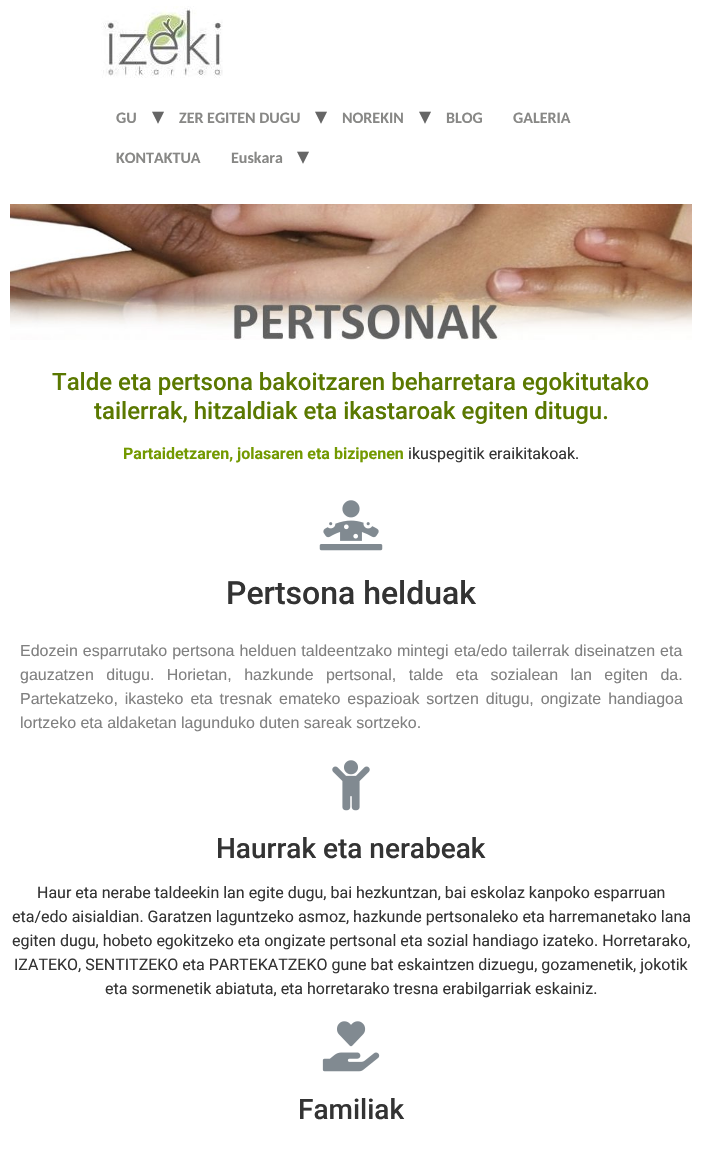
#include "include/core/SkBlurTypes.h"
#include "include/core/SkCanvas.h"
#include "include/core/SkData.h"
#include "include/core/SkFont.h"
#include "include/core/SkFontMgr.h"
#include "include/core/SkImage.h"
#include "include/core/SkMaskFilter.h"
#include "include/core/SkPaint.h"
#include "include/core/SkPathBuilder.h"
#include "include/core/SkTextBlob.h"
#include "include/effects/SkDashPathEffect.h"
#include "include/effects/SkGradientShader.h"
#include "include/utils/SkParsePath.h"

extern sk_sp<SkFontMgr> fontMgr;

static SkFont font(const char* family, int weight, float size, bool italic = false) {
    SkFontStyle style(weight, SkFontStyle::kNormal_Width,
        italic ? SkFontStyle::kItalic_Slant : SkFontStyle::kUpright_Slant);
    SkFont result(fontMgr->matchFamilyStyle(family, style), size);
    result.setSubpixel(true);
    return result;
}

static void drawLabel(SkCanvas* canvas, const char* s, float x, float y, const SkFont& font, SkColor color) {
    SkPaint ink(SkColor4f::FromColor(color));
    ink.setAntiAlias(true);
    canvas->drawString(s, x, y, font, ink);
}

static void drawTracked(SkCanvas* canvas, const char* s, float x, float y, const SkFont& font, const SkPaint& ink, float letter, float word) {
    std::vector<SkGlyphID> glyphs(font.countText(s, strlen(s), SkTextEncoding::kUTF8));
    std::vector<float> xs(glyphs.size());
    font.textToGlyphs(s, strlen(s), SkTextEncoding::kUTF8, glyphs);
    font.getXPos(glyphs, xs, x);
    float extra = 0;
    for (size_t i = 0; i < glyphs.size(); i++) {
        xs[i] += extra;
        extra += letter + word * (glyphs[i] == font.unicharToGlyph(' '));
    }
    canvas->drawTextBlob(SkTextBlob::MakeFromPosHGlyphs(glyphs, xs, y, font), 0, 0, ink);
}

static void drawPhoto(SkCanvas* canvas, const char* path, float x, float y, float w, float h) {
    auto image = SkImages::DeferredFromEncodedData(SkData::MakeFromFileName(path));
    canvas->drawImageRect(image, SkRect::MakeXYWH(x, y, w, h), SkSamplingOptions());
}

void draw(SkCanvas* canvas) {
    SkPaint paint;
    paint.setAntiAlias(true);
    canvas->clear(0xFFFFFFFF);
    drawPhoto(canvas, "assets/img1.png", 101, 6, 122, 72);
    SkFont font1 = font("Carlito", 700, 16);
    drawLabel(canvas, "GU", 116, 123, font1, 0xFF888886);
    SkFont font2 = font("DejaVu Sans", 400, 24);
    drawLabel(canvas, "▾", 152, 124, font2, 0xFF666666);
    drawLabel(canvas, "ZER EGITEN DUGU", 179, 123, font1, 0xFF888886);
    drawLabel(canvas, "▾", 315, 124, font2, 0xFF666666);
    drawLabel(canvas, "NOREKIN", 342, 123, font1, 0xFF888886);
    drawLabel(canvas, "▾", 419, 124, font2, 0xFF666666);
    drawLabel(canvas, "BLOG", 446, 123, font1, 0xFF888886);
    drawLabel(canvas, "GALERIA", 513, 123, font1, 0xFF888886);
    drawLabel(canvas, "KONTAKTUA", 116, 163, font1, 0xFF888886);
    drawLabel(canvas, "Euskara", 231, 163, font1, 0xFF888886);
    drawLabel(canvas, "▾", 297, 164, font2, 0xFF666666);
    drawPhoto(canvas, "assets/img2.png", 10, 204, 682, 136);
    SkFont font3 = font("Roboto", 500, 24);
    drawLabel(canvas, "Talde eta pertsona bakoitzaren beharretara egokitutako", 52, 390, font3, 0xFF5A7800);
    drawLabel(canvas, "tailerrak, hitzaldiak eta ikastaroak egiten ditugu.", 94, 419, font3, 0xFF5A7800);
    SkFont font4 = font("Roboto", 700, 16);
    drawLabel(canvas, "Partaidetzaren, jolasaren eta bizipenen", 123, 459, font4, 0xFF739900);
    SkFont font5 = font("Roboto", 400, 16);
    drawLabel(canvas, "ikuspegitik eraikitakoak.", 408, 459, font5, 0xFF333333);
    drawPhoto(canvas, "assets/img3.png", 319, 500, 64, 51);
    SkFont font6 = font("Roboto", 500, 32);
    drawLabel(canvas, "Pertsona helduak", 226, 604, font6, 0xFF333333);
    SkFont font7 = font("Liberation Sans", 400, 16);
    paint.setColor(0xFF808080);
    drawTracked(canvas, "Edozein esparrutako pertsona helduen taldeentzako mintegi", 20, 656, font7, paint, 0, 0.5f);
    drawTracked(canvas, "eta/edo tailerrak diseinatzen eta", 454, 656, font7, paint, 0, 0.5f);
    drawTracked(canvas, "gauzatzen ditugu. Horietan, hazkunde pertsonal, talde eta sozialean lan egiten da.", 20, 680, font7, paint, 0, 8);
    drawTracked(canvas, "Partekatzeko, ikasteko eta tresnak emateko espazioak sortzen ditugu, ongizate handiagoa", 20, 704, font7, paint, 0, 2.5f);
    drawLabel(canvas, "lortzeko eta aldaketan lagunduko duten sareak sortzeko.", 20, 728, font7, 0xFF808080);
    drawPhoto(canvas, "assets/img4.png", 332, 760, 38, 51);
    SkFont font8 = font("Roboto", 500, 28);
    drawLabel(canvas, "Haurrak eta nerabeak", 216, 858, font8, 0xFF333333);
    drawLabel(canvas, "Haur eta nerabe taldeekin lan egite dugu, bai hezkuntzan, bai eskolaz kanpoko esparruan", 37, 898, font5, 0xFF333333);
    drawLabel(canvas, "eta/edo aisialdian. Garatzen laguntzeko asmoz, hazkunde pertsonaleko eta harremanetako lana", 12, 922, font5, 0xFF333333);
    drawLabel(canvas, "egiten dugu, hobeto egokitzeko eta ongizate pertsonal eta sozial handiago izateko. Horretarako,", 12, 946, font5, 0xFF333333);
    drawLabel(canvas, "IZATEKO, SENTITZEKO eta PARTEKATZEKO gune bat eskaintzen dizuegu, gozamenetik, jokotik", 14, 970, font5, 0xFF333333);
    drawLabel(canvas, "eta sormenetik abiatuta, eta horretarako tresna erabilgarriak eskainiz.", 105, 994, font5, 0xFF333333);
    drawPhoto(canvas, "assets/img5.png", 322, 1021, 58, 51);
    drawLabel(canvas, "Familiak", 298, 1119, font8, 0xFF333333);
}
